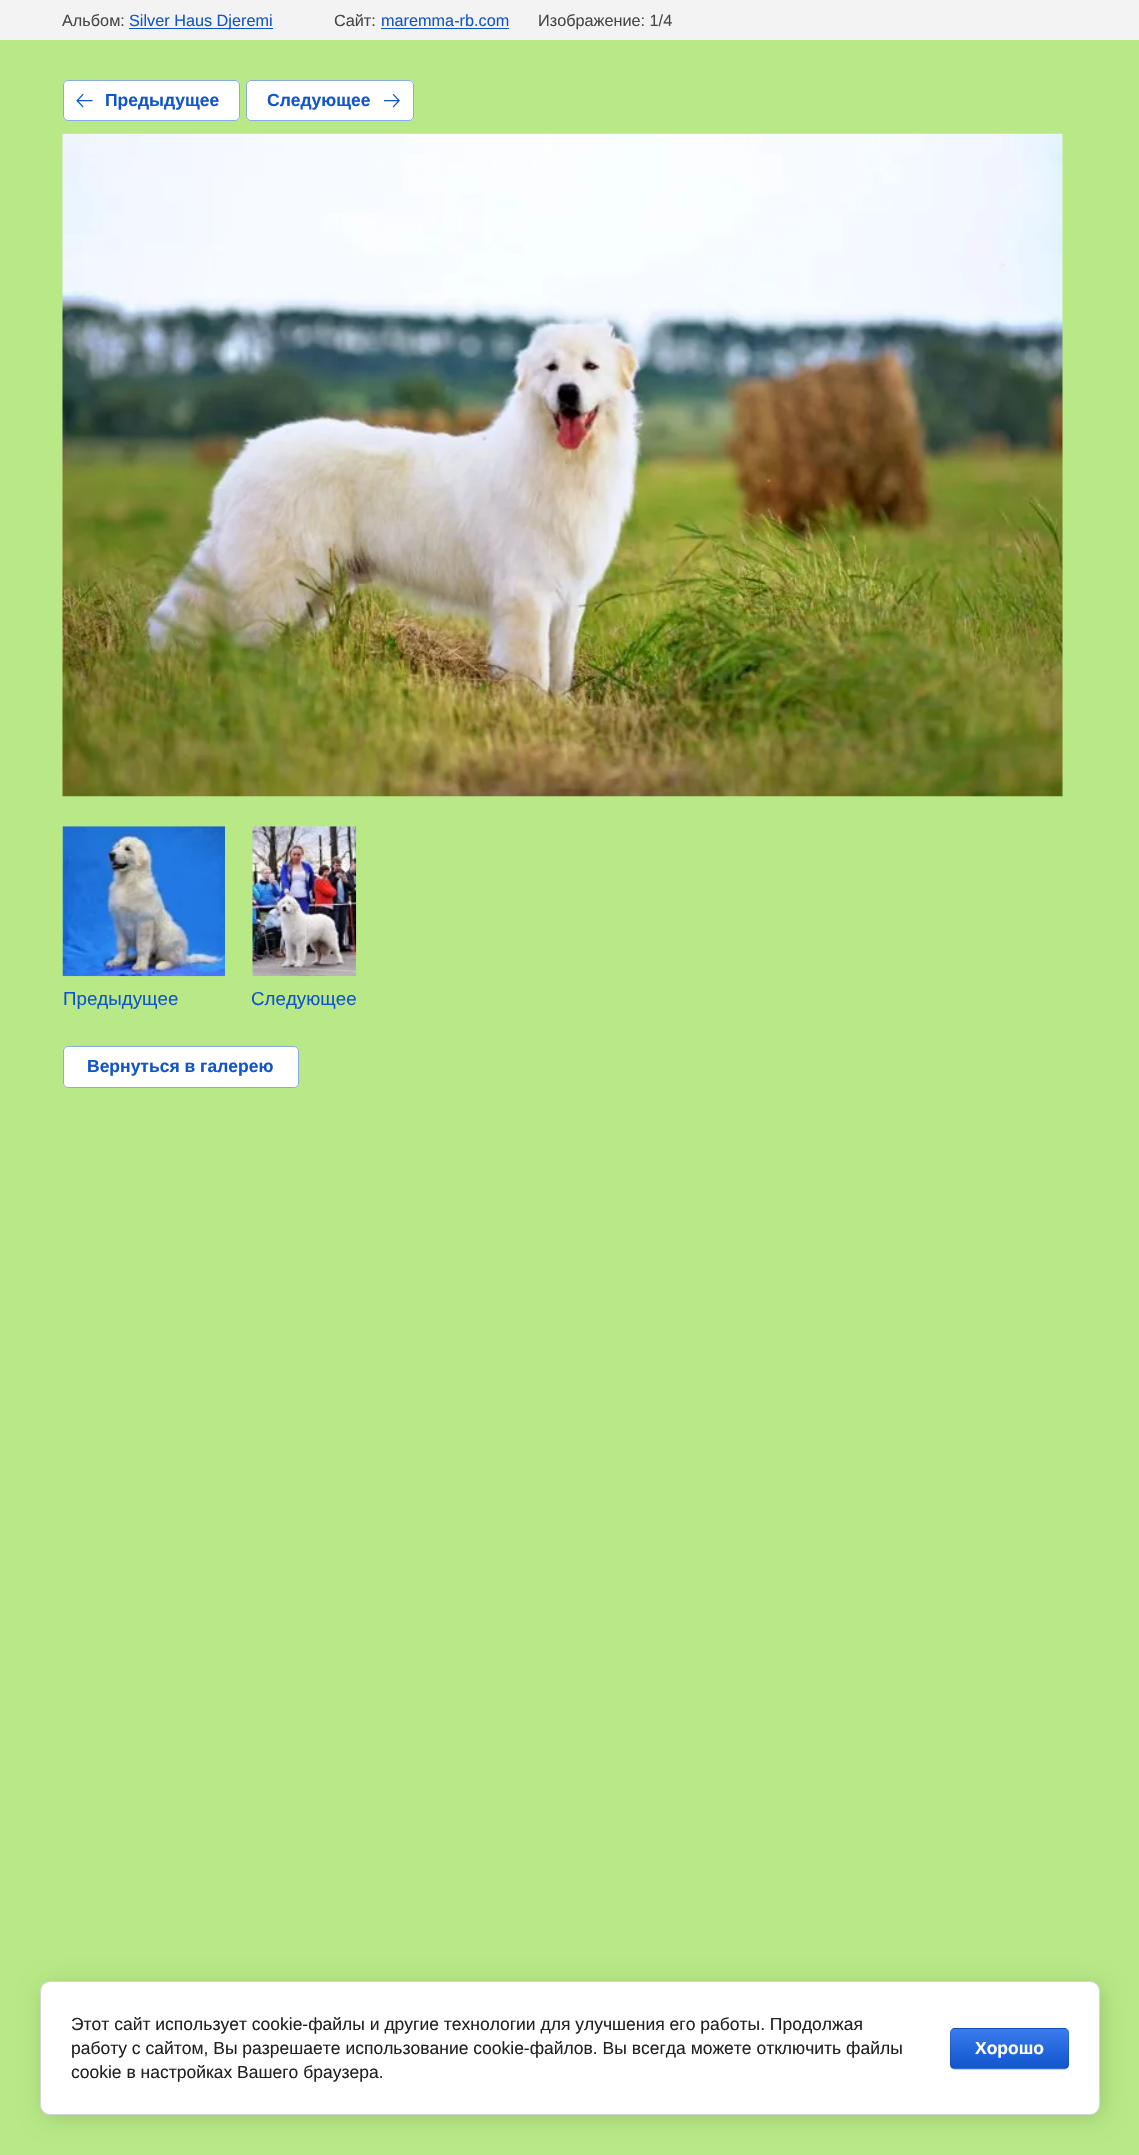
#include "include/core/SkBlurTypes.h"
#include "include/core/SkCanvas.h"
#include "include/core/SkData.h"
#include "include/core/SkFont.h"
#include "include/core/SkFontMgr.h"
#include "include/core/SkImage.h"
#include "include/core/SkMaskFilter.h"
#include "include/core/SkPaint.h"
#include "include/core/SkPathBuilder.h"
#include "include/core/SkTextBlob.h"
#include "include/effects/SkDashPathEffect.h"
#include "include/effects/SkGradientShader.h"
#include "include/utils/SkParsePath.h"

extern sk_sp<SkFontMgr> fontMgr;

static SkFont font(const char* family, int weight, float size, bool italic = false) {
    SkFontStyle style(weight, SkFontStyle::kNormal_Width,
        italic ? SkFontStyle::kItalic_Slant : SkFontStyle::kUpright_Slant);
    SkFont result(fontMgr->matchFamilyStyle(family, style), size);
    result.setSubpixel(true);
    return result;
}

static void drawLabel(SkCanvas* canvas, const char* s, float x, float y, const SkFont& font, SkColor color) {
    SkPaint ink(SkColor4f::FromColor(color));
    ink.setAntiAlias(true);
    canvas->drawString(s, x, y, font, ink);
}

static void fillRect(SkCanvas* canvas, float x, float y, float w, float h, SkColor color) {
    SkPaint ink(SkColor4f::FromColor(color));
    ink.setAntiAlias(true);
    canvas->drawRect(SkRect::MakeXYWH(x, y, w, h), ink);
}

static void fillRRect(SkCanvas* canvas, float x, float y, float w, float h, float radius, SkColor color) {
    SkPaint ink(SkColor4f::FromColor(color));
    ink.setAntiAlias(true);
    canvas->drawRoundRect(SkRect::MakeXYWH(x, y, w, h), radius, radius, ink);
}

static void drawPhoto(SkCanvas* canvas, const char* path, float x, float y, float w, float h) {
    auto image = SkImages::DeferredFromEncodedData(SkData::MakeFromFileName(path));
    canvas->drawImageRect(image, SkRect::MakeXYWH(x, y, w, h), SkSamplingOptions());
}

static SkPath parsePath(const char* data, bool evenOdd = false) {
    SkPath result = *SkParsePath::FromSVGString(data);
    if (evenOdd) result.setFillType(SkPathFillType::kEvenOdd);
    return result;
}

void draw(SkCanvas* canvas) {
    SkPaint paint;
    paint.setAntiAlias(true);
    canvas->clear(0xFFB8E986);
    fillRect(canvas, 0, 0, 1139, 40, 0xFFF3F3F3);
    SkFont font1 = font("Liberation Sans", 400, 16.25f);
    drawLabel(canvas, "Альбом:", 62, 26, font1, 0xFF484848);
    fillRect(canvas, 129, 28, 144, 1, 0xFF1155CC);
    drawLabel(canvas, "Silver Haus Djeremi", 129, 26, font1, 0xFF1155CC);
    drawLabel(canvas, "Сайт:", 334, 26, font1, 0xFF484848);
    drawLabel(canvas, "maremma-rb.com", 381, 26, font1, 0xFF1155CC);
    fillRect(canvas, 381, 28, 128, 1, 0xFF1155CC);
    drawLabel(canvas, "Изображение: 1/4", 538, 26, font1, 0xFF484848);
    fillRRect(canvas, 63, 80, 177, 41, 5, 0xFFFFFFFF);
    paint.setStroke(true);
    paint.setStrokeWidth(1);
    paint.setColor(0x801155CC);
    canvas->drawRoundRect(SkRect::MakeXYWH(63.5f, 80.5f, 176, 40), 4.5f, 4.5f, paint);
    drawPhoto(canvas, "assets/img1.png", 76, 94, 17, 14);
    SkFont font2 = font("Liberation Sans", 700, 17.5f);
    drawLabel(canvas, "Предыдущее", 105, 106, font2, 0xFF1155CC);
    fillRRect(canvas, 246, 80, 168, 41, 5, 0xFFFFFFFF);
    canvas->drawRoundRect(SkRect::MakeXYWH(246.5f, 80.5f, 167, 40), 4.5f, 4.5f, paint);
    drawLabel(canvas, "Следующее", 267, 106, font2, 0xFF1155CC);
    drawPhoto(canvas, "assets/img2.png", 384, 94, 16, 14);
    drawPhoto(canvas, "assets/img3.png", 62, 133, 1001, 664);
    drawPhoto(canvas, "assets/img4.png", 62, 826, 163, 151);
    SkFont font3 = font("Liberation Sans", 400, 18.75f);
    drawLabel(canvas, "Предыдущее", 63, 1005, font3, 0xFF1155CC);
    drawPhoto(canvas, "assets/img5.png", 252, 826, 105, 151);
    drawLabel(canvas, "Следующее", 251, 1005, font3, 0xFF1155CC);
    fillRRect(canvas, 63, 1046, 236, 42, 5, 0xFFFFFFFF);
    canvas->drawRoundRect(SkRect::MakeXYWH(63.5f, 1046.5f, 235, 41), 4.5f, 4.5f, paint);
    drawLabel(canvas, "Вернуться в галерею", 87, 1072, font2, 0xFF1155CC);
    paint.setStroke(false);
    paint.setColor(0x24000000);
    paint.setMaskFilter(SkMaskFilter::MakeBlur(kNormal_SkBlurStyle, 11));
    canvas->drawRoundRect(SkRect::MakeXYWH(43, 1984, 1060, 134), 10, 10, paint);
    paint.setMaskFilter(nullptr);
    paint.setColor(0xFFFFFFFF);
    canvas->drawRoundRect(SkRect::MakeXYWH(40.5f, 1981.5f, 1059, 133), 9.5f, 9.5f, paint);
    paint.setStroke(true);
    paint.setColor(0xFFD6D6D6);
    canvas->drawRoundRect(SkRect::MakeXYWH(40.5f, 1981.5f, 1059, 133), 9.5f, 9.5f, paint);
    SkFont font4 = font("Liberation Sans", 400, 17.5f);
    drawLabel(canvas, "Этот сайт использует cookie-файлы и другие технологии для улучшения его работы. Продолжая", 71, 2030, font4, 0xFF212121);
    drawLabel(canvas, "работу с сайтом, Вы разрешаете использование cookie-файлов. Вы всегда можете отключить файлы", 71, 2054, font4, 0xFF212121);
    drawLabel(canvas, "cookie в настройках Вашего браузера.", 71, 2078, font4, 0xFF212121);
    paint.setStroke(false);
    paint.setColor(0x33000000);
    paint.setMaskFilter(SkMaskFilter::MakeBlur(kNormal_SkBlurStyle, 0.5f));
    canvas->drawRoundRect(SkRect::MakeXYWH(950, 2029, 119, 41), 5, 5, paint);
    paint.setMaskFilter(nullptr);
    canvas->save();
    canvas->clipPath(parsePath("M955 2028H1064C1067 2028 1069 2030 1069 2033V2064C1069 2067 1067 2069 1064 2069H955C952 2069 950 2067 950 2064V2033C950 2030 952 2028 955 2028Z"), true);
    {
        const SkColor colors[] = {0xFF3B7CEF, 0xFF1155CC};
        const float stops[] = {0, 1};
        const SkPoint ends[] = {{1009, 1990}, {1009, 2029}};
        paint.setShader(SkGradientShader::MakeLinear(ends, colors, stops, 2, SkTileMode::kClamp));
        paint.setAlpha(255);
    }
    canvas->drawRect(SkRect::MakeXYWH(950, 2028, 119, 1), paint);
    {
        const SkColor colors[] = {0xFF3B7CEF, 0xFF1155CC};
        const float stops[] = {0, 1};
        const SkPoint ends[] = {{1009, 2029}, {1009, 2068}};
        paint.setShader(SkGradientShader::MakeLinear(ends, colors, stops, 2, SkTileMode::kClamp));
        paint.setAlpha(255);
    }
    canvas->drawRect(SkRect::MakeXYWH(950, 2029, 119, 39), paint);
    {
        const SkColor colors[] = {0xFF3B7CEF, 0xFF1155CC};
        const float stops[] = {0, 1};
        const SkPoint ends[] = {{1009, 2068}, {1009, 2106}};
        paint.setShader(SkGradientShader::MakeLinear(ends, colors, stops, 2, SkTileMode::kClamp));
        paint.setAlpha(255);
    }
    canvas->drawRect(SkRect::MakeXYWH(950, 2068, 119, 1), paint);
    canvas->restore();
    paint.setStroke(true);
    paint.setShader(nullptr);
    paint.setColor(0x1A000000);
    canvas->drawRoundRect(SkRect::MakeXYWH(950.5f, 2028.5f, 118, 40), 4.5f, 4.5f, paint);
    drawLabel(canvas, "Хорошо", 975, 2054, font2, 0xFFFFFFFF);
}
